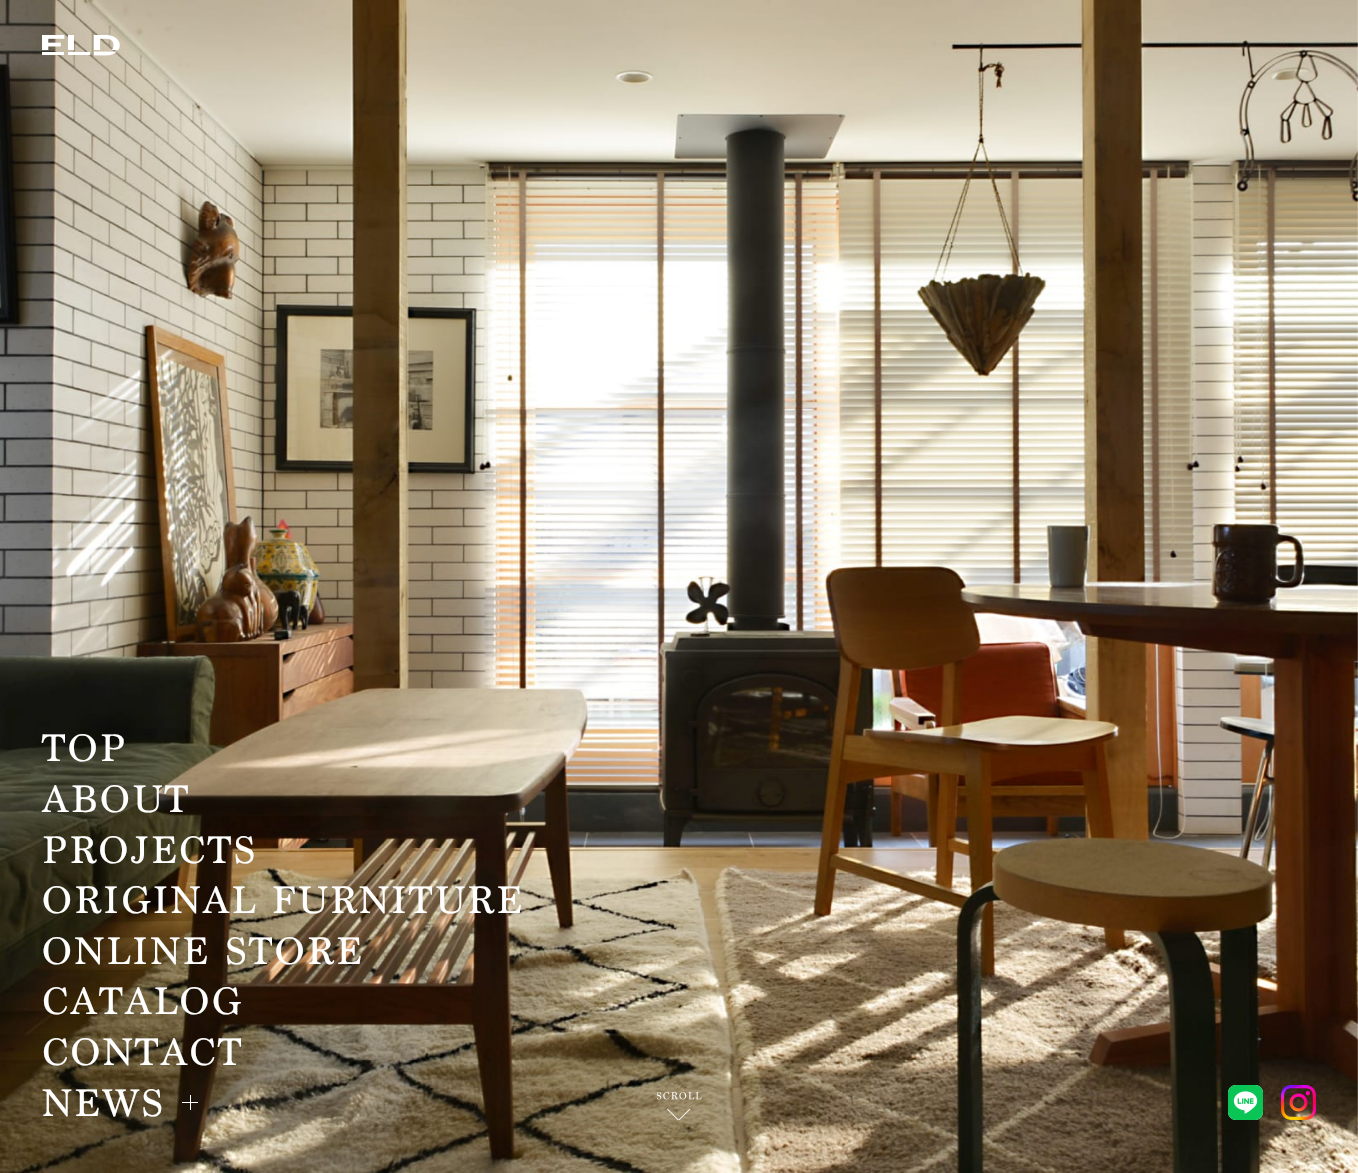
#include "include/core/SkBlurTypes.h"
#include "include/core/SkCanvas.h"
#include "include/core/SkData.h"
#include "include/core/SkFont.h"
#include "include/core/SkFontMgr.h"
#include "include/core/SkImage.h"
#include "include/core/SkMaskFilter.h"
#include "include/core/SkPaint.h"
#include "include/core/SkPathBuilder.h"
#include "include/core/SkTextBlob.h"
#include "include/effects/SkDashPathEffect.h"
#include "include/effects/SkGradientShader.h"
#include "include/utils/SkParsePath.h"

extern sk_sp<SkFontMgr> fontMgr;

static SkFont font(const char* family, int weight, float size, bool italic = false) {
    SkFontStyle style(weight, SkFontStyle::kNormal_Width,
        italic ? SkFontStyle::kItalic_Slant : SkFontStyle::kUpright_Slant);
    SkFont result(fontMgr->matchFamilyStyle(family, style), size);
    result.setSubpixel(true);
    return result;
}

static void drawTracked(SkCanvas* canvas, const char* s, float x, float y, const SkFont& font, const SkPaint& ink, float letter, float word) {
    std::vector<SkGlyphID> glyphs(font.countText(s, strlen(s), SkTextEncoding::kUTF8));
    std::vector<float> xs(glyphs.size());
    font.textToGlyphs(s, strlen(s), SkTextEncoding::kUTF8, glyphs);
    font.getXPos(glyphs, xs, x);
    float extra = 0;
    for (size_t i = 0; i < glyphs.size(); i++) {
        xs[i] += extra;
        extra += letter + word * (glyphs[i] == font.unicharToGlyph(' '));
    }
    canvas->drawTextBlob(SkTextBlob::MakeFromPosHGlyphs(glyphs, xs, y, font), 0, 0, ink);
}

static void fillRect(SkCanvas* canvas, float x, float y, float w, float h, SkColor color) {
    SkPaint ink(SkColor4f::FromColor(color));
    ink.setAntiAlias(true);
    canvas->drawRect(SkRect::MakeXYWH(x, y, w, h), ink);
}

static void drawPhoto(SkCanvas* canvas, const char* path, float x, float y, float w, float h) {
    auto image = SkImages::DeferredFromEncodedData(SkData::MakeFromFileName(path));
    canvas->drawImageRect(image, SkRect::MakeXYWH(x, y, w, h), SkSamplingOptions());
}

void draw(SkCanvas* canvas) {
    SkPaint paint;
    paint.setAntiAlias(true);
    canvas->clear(0xFFFFFFFF);
    drawPhoto(canvas, "assets/img2.png", 0, 0, 1358, 1173);
    drawPhoto(canvas, "assets/img1.png", 42, 35, 78, 21);
    SkFont font1 = font("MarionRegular", 400, 40);
    paint.setColor(0xFFFFFFFF);
    drawTracked(canvas, "TOP", 42, 761, font1, paint, 2.4f, 0);
    drawTracked(canvas, "ABOUT", 42, 812, font1, paint, 2.4f, 0);
    drawTracked(canvas, "PROJECTS", 42, 863, font1, paint, 2.4f, 0);
    drawTracked(canvas, "ORIGINAL FURNITURE", 42, 913, font1, paint, 2.4f, 0);
    drawTracked(canvas, "ONLINE STORE", 42, 964, font1, paint, 2.4f, 0);
    drawTracked(canvas, "CATALOG", 42, 1014, font1, paint, 2.4f, 0);
    drawTracked(canvas, "CONTACT", 42, 1065, font1, paint, 2.4f, 0);
    drawTracked(canvas, "NEWS", 42, 1116, font1, paint, 2.4f, 0);
    fillRect(canvas, 190, 1095, 1, 15, 0xFFFFFFFF);
    fillRect(canvas, 182, 1102, 16, 1, 0xFFFFFFFF);
    drawPhoto(canvas, "assets/img3.png", 657, 1092, 45, 28);
    drawPhoto(canvas, "assets/img4.png", 1228, 1085, 35, 35);
    drawPhoto(canvas, "assets/img5.png", 1281, 1085, 35, 35);
}
